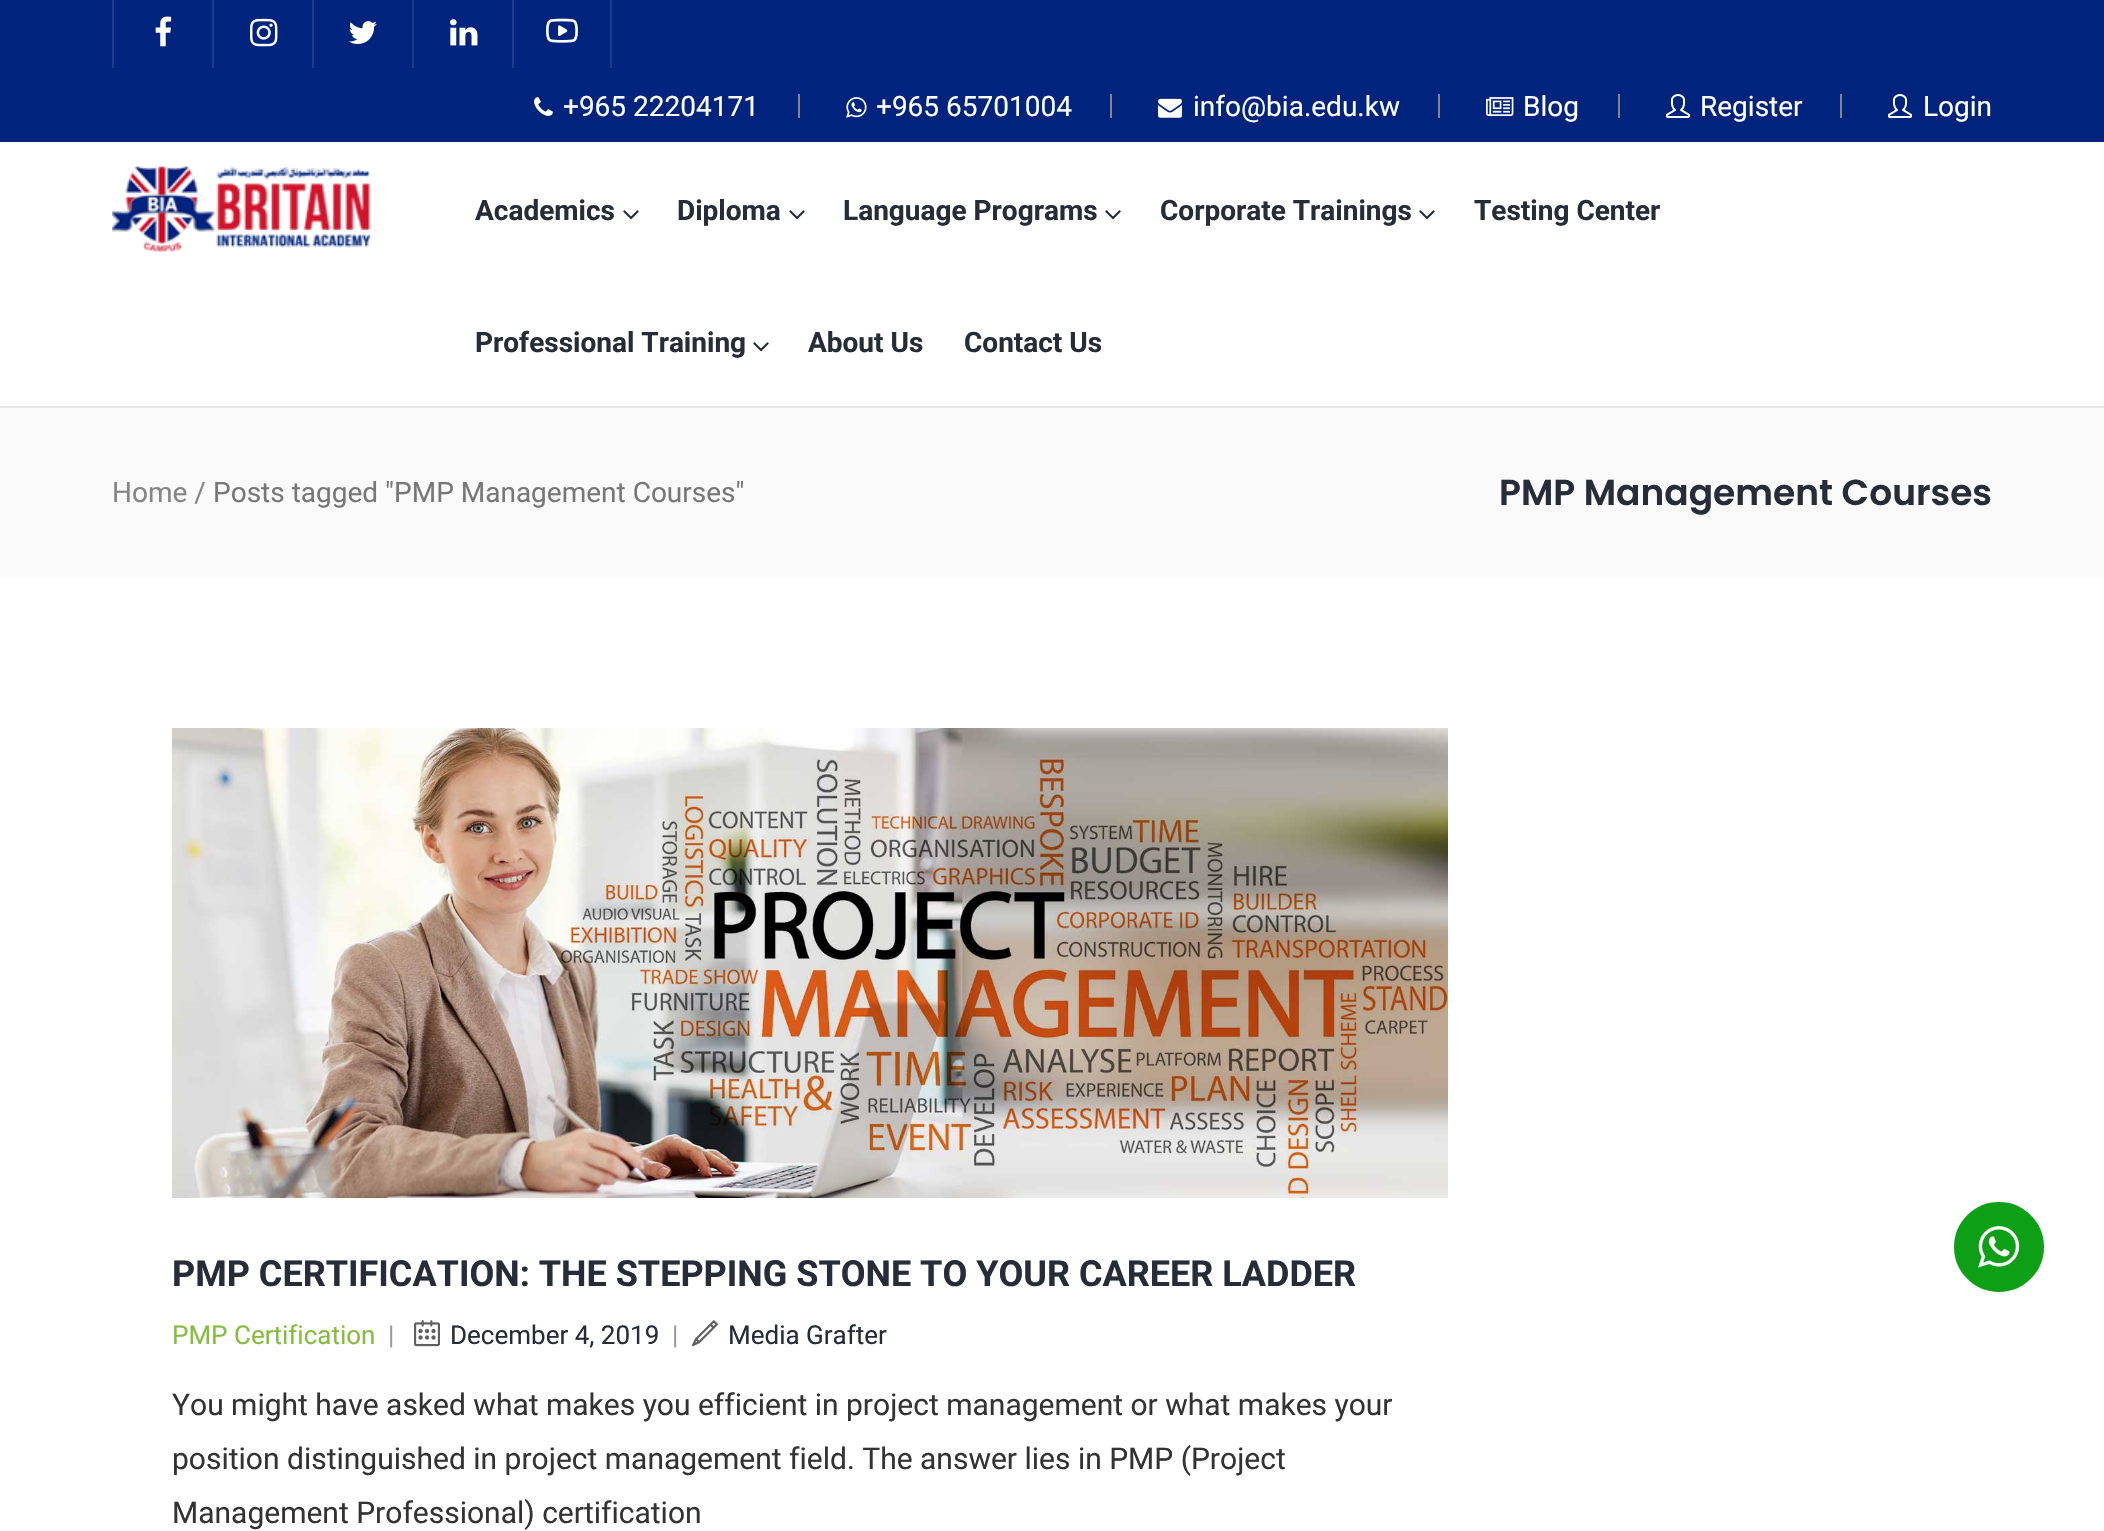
#include "include/core/SkBlurTypes.h"
#include "include/core/SkCanvas.h"
#include "include/core/SkData.h"
#include "include/core/SkFont.h"
#include "include/core/SkFontMgr.h"
#include "include/core/SkImage.h"
#include "include/core/SkMaskFilter.h"
#include "include/core/SkPaint.h"
#include "include/core/SkPathBuilder.h"
#include "include/core/SkTextBlob.h"
#include "include/effects/SkDashPathEffect.h"
#include "include/effects/SkGradientShader.h"
#include "include/utils/SkParsePath.h"

extern sk_sp<SkFontMgr> fontMgr;

static SkFont font(const char* family, int weight, float size, bool italic = false) {
    SkFontStyle style(weight, SkFontStyle::kNormal_Width,
        italic ? SkFontStyle::kItalic_Slant : SkFontStyle::kUpright_Slant);
    SkFont result(fontMgr->matchFamilyStyle(family, style), size);
    result.setSubpixel(true);
    return result;
}

static void drawLabel(SkCanvas* canvas, const char* s, float x, float y, const SkFont& font, SkColor color) {
    SkPaint ink(SkColor4f::FromColor(color));
    ink.setAntiAlias(true);
    canvas->drawString(s, x, y, font, ink);
}

static void fillRect(SkCanvas* canvas, float x, float y, float w, float h, SkColor color) {
    SkPaint ink(SkColor4f::FromColor(color));
    ink.setAntiAlias(true);
    canvas->drawRect(SkRect::MakeXYWH(x, y, w, h), ink);
}

static void drawPhoto(SkCanvas* canvas, const char* path, float x, float y, float w, float h) {
    auto image = SkImages::DeferredFromEncodedData(SkData::MakeFromFileName(path));
    canvas->drawImageRect(image, SkRect::MakeXYWH(x, y, w, h), SkSamplingOptions());
}

void draw(SkCanvas* canvas) {
    SkPaint paint;
    paint.setAntiAlias(true);
    canvas->clear(0xFFFFFFFF);
    fillRect(canvas, 0, 406, 2104, 2, 0xFFE6E6E6);
    fillRect(canvas, 0, 0, 2104, 142, 0xFF00247D);
    fillRect(canvas, 112, 0, 2, 68, 0xFF1A3A8A);
    drawPhoto(canvas, "assets/img1.png", 155, 16, 17, 31);
    fillRect(canvas, 212, 0, 2, 68, 0xFF1A3A8A);
    drawPhoto(canvas, "assets/img2.png", 250, 18, 28, 29);
    fillRect(canvas, 312, 0, 2, 68, 0xFF1A3A8A);
    drawPhoto(canvas, "assets/img3.png", 349, 21, 28, 23);
    fillRect(canvas, 412, 0, 2, 68, 0xFF1A3A8A);
    drawPhoto(canvas, "assets/img4.png", 450, 19, 28, 27);
    fillRect(canvas, 610, 0, 2, 68, 0xFF1A3A8A);
    fillRect(canvas, 512, 0, 2, 68, 0xFF1A3A8A);
    drawPhoto(canvas, "assets/img5.png", 546, 18, 32, 25);
    drawPhoto(canvas, "assets/img6.png", 534, 97, 19, 19);
    SkFont font1 = font("Roboto", 400, 28);
    drawLabel(canvas, "+965 22204171", 563, 116, font1, 0xFFFFFFFF);
    fillRect(canvas, 798, 94, 2, 24, 0xFF858585);
    drawPhoto(canvas, "assets/img7.png", 846, 97, 21, 21);
    drawLabel(canvas, "+965 65701004", 876, 116, font1, 0xFFFFFFFF);
    fillRect(canvas, 1110, 94, 2, 24, 0xFF858585);
    drawPhoto(canvas, "assets/img8.png", 1158, 98, 24, 20);
    drawLabel(canvas, "info@bia.edu.kw", 1193, 116, font1, 0xFFFFFFFF);
    fillRect(canvas, 1438, 94, 2, 24, 0xFF858585);
    drawPhoto(canvas, "assets/img9.png", 1486, 97, 28, 19);
    drawLabel(canvas, "Blog", 1523, 116, font1, 0xFFFFFFFF);
    fillRect(canvas, 1618, 94, 2, 24, 0xFF858585);
    drawPhoto(canvas, "assets/img10.png", 1666, 94, 24, 24);
    drawLabel(canvas, "Register", 1700, 116, font1, 0xFFFFFFFF);
    fillRect(canvas, 1840, 94, 2, 24, 0xFF858585);
    drawPhoto(canvas, "assets/img10.png", 1888, 94, 24, 24);
    drawLabel(canvas, "Login", 1923, 116, font1, 0xFFFFFFFF);
    drawPhoto(canvas, "assets/img11.png", 112, 166, 259, 86);
    SkFont font2 = font("Roboto", 700, 28);
    drawLabel(canvas, "Academics", 475, 220, font2, 0xFF262C38);
    drawPhoto(canvas, "assets/img12.png", 623, 210, 16, 10);
    drawLabel(canvas, "Diploma", 677, 220, font2, 0xFF262C38);
    drawPhoto(canvas, "assets/img12.png", 789, 210, 16, 10);
    drawLabel(canvas, "Language Programs", 843, 220, font2, 0xFF262C38);
    drawPhoto(canvas, "assets/img12.png", 1105, 210, 16, 10);
    drawLabel(canvas, "Corporate Trainings", 1160, 220, font2, 0xFF262C38);
    drawPhoto(canvas, "assets/img12.png", 1419, 210, 16, 10);
    drawLabel(canvas, "Testing Center", 1474, 220, font2, 0xFF262C38);
    drawLabel(canvas, "Professional Training", 475, 352, font2, 0xFF262C38);
    drawPhoto(canvas, "assets/img12.png", 753, 342, 16, 10);
    drawLabel(canvas, "About Us", 808, 352, font2, 0xFF262C38);
    drawLabel(canvas, "Contact Us", 964, 352, font2, 0xFF262C38);
    fillRect(canvas, 0, 408, 2104, 170, 0xFFFAFAFA);
    drawLabel(canvas, "Home /", 112, 502, font1, 0xFF858585);
    drawLabel(canvas, "Posts tagged \"PMP Management Courses\"", 213, 502, font1, 0xFF777777);
    SkFont font3 = font("Poppins", 600, 36);
    drawLabel(canvas, "PMP Management Courses", 1499, 505, font3, 0xFF262C38);
    drawPhoto(canvas, "assets/img13.png", 172, 728, 1276, 470);
    SkFont font4 = font("Roboto", 700, 36);
    drawLabel(canvas, "PMP CERTIFICATION: THE STEPPING STONE TO YOUR CAREER LADDER", 172, 1286, font4, 0xFF262C38);
    SkFont font5 = font("Roboto", 400, 26);
    drawLabel(canvas, "PMP Certification", 172, 1344, font5, 0xFF86BC42);
    drawLabel(canvas, "|", 388, 1344, font5, 0xFF999999);
    drawPhoto(canvas, "assets/img14.png", 414, 1320, 26, 27);
    drawLabel(canvas, "December 4, 2019", 450, 1344, font5, 0xFF262C38);
    drawLabel(canvas, "|", 672, 1344, font5, 0xFF999999);
    drawPhoto(canvas, "assets/img15.png", 692, 1320, 26, 27);
    drawLabel(canvas, "Media Grafter", 728, 1344, font5, 0xFF262C38);
    SkFont font6 = font("Roboto", 400, 30);
    drawLabel(canvas, "You might have asked what makes you efficient in project management or what makes your", 172, 1415, font6, 0xFF333333);
    drawLabel(canvas, "position distinguished in project management field. The answer lies in PMP (Project", 172, 1469, font6, 0xFF333333);
    drawLabel(canvas, "Management Professional) certification", 172, 1523, font6, 0xFF333333);
    paint.setColor(0xFF0D9F16);
    canvas->drawCircle(1999, 1247, 43, paint);
    paint.setStroke(true);
    paint.setStrokeWidth(4);
    canvas->drawCircle(1999, 1247, 43, paint);
    drawPhoto(canvas, "assets/img16.png", 1978, 1226, 42, 42);
}
